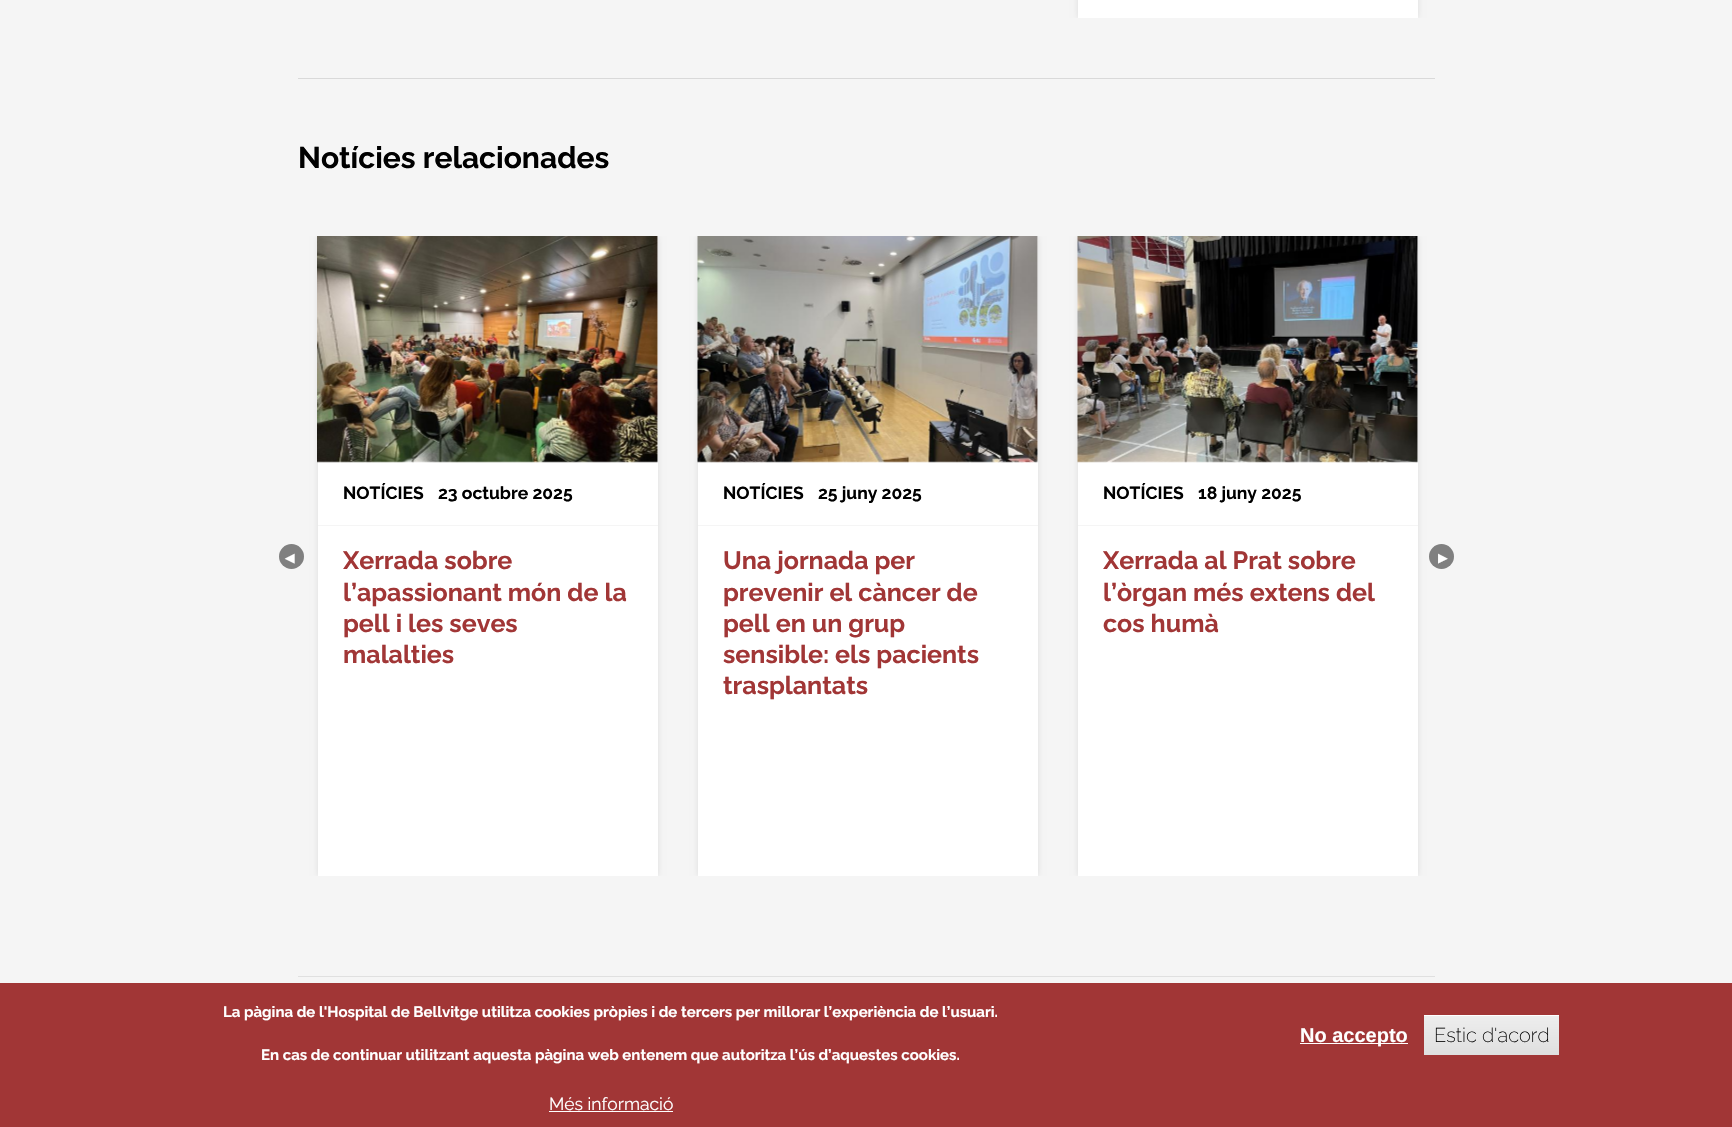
#include "include/core/SkBlurTypes.h"
#include "include/core/SkCanvas.h"
#include "include/core/SkData.h"
#include "include/core/SkFont.h"
#include "include/core/SkFontMgr.h"
#include "include/core/SkImage.h"
#include "include/core/SkMaskFilter.h"
#include "include/core/SkPaint.h"
#include "include/core/SkPathBuilder.h"
#include "include/core/SkTextBlob.h"
#include "include/effects/SkDashPathEffect.h"
#include "include/effects/SkGradientShader.h"
#include "include/utils/SkParsePath.h"

extern sk_sp<SkFontMgr> fontMgr;

static SkFont font(const char* family, int weight, float size, bool italic = false) {
    SkFontStyle style(weight, SkFontStyle::kNormal_Width,
        italic ? SkFontStyle::kItalic_Slant : SkFontStyle::kUpright_Slant);
    SkFont result(fontMgr->matchFamilyStyle(family, style), size);
    result.setSubpixel(true);
    return result;
}

static void drawLabel(SkCanvas* canvas, const char* s, float x, float y, const SkFont& font, SkColor color) {
    SkPaint ink(SkColor4f::FromColor(color));
    ink.setAntiAlias(true);
    canvas->drawString(s, x, y, font, ink);
}

static void fillRect(SkCanvas* canvas, float x, float y, float w, float h, SkColor color) {
    SkPaint ink(SkColor4f::FromColor(color));
    ink.setAntiAlias(true);
    canvas->drawRect(SkRect::MakeXYWH(x, y, w, h), ink);
}

static void drawPhoto(SkCanvas* canvas, const char* path, float x, float y, float w, float h) {
    auto image = SkImages::DeferredFromEncodedData(SkData::MakeFromFileName(path));
    canvas->drawImageRect(image, SkRect::MakeXYWH(x, y, w, h), SkSamplingOptions());
}

void draw(SkCanvas* canvas) {
    SkPaint paint;
    paint.setAntiAlias(true);
    canvas->clear(0xFFF5F5F5);
    canvas->save();
    canvas->clipRect(SkRect::MakeXYWH(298, 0, 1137, 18));
    paint.setColor(0xFFDDDDDD);
    paint.setMaskFilter(SkMaskFilter::MakeBlur(kNormal_SkBlurStyle, 3));
    canvas->drawRect(SkRect::MakeXYWH(1078, -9, 340, 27), paint);
    paint.setMaskFilter(nullptr);
    canvas->restore();
    fillRect(canvas, 1078, 0, 340, 18, 0xFFFFFFFF);
    fillRect(canvas, 298, 78, 1137, 1, 0xFFD9D9D9);
    SkFont font1 = font("Raleway", 700, 30);
    drawLabel(canvas, "Notícies relacionades", 298, 168, font1, 0xFF000000);
    paint.setColor(0xFF808080);
    canvas->drawCircle(291.5f, 556.5f, 12.5f, paint);
    SkFont font2 = font("DejaVu Sans", 700, 12);
    drawLabel(canvas, "◀", 285, 562, font2, 0xFFFFFFFF);
    canvas->save();
    canvas->clipRect(SkRect::MakeXYWH(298, 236, 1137, 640));
    paint.setColor(0xFFDDDDDD);
    paint.setMaskFilter(SkMaskFilter::MakeBlur(kNormal_SkBlurStyle, 3));
    canvas->drawRect(SkRect::MakeXYWH(318, 236, 340, 640), paint);
    paint.setMaskFilter(nullptr);
    canvas->restore();
    fillRect(canvas, 318, 236, 340, 640, 0xFFFFFFFF);
    drawPhoto(canvas, "assets/img1.png", 317, 236, 341, 227);
    fillRect(canvas, 318, 525, 340, 1, 0xFFF5F5F5);
    SkFont font3 = font("Raleway", 700, 17.5f);
    drawLabel(canvas, "NOTÍCIES", 343, 499, font3, 0xFF000000);
    drawLabel(canvas, "23 octubre 2025", 438, 499, font3, 0xFF000000);
    SkFont font4 = font("Raleway", 700, 25);
    drawLabel(canvas, "Xerrada sobre", 343, 569, font4, 0xFFA13636);
    drawLabel(canvas, "l’apassionant món de la", 343, 601, font4, 0xFFA13636);
    drawLabel(canvas, "pell i les seves", 343, 632, font4, 0xFFA13636);
    drawLabel(canvas, "malalties", 343, 663, font4, 0xFFA13636);
    canvas->save();
    canvas->clipRect(SkRect::MakeXYWH(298, 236, 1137, 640));
    paint.setMaskFilter(SkMaskFilter::MakeBlur(kNormal_SkBlurStyle, 3));
    canvas->drawRect(SkRect::MakeXYWH(698, 236, 340, 640), paint);
    paint.setMaskFilter(nullptr);
    canvas->restore();
    fillRect(canvas, 698, 236, 340, 640, 0xFFFFFFFF);
    drawPhoto(canvas, "assets/img2.png", 697, 236, 341, 227);
    fillRect(canvas, 698, 525, 340, 1, 0xFFF5F5F5);
    drawLabel(canvas, "NOTÍCIES", 723, 499, font3, 0xFF000000);
    drawLabel(canvas, "25 juny 2025", 818, 499, font3, 0xFF000000);
    drawLabel(canvas, "Una jornada per", 723, 569, font4, 0xFFA13636);
    drawLabel(canvas, "prevenir el càncer de", 723, 601, font4, 0xFFA13636);
    drawLabel(canvas, "pell en un grup", 723, 632, font4, 0xFFA13636);
    drawLabel(canvas, "sensible: els pacients", 723, 663, font4, 0xFFA13636);
    drawLabel(canvas, "trasplantats", 723, 694, font4, 0xFFA13636);
    canvas->save();
    canvas->clipRect(SkRect::MakeXYWH(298, 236, 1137, 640));
    paint.setMaskFilter(SkMaskFilter::MakeBlur(kNormal_SkBlurStyle, 3));
    canvas->drawRect(SkRect::MakeXYWH(1078, 236, 340, 640), paint);
    paint.setMaskFilter(nullptr);
    canvas->restore();
    fillRect(canvas, 1078, 236, 340, 640, 0xFFFFFFFF);
    drawPhoto(canvas, "assets/img3.png", 1077, 236, 341, 227);
    fillRect(canvas, 1078, 525, 340, 1, 0xFFF5F5F5);
    drawLabel(canvas, "NOTÍCIES", 1103, 499, font3, 0xFF000000);
    drawLabel(canvas, "18 juny 2025", 1198, 499, font3, 0xFF000000);
    drawLabel(canvas, "Xerrada al Prat sobre", 1103, 569, font4, 0xFFA13636);
    drawLabel(canvas, "l’òrgan més extens del", 1103, 601, font4, 0xFFA13636);
    drawLabel(canvas, "cos humà", 1103, 632, font4, 0xFFA13636);
    paint.setColor(0xFF808080);
    canvas->drawCircle(1441.5f, 556.5f, 12.5f, paint);
    drawLabel(canvas, "▶", 1438, 562, font2, 0xFFFFFFFF);
    fillRect(canvas, 298, 976, 1137, 1, 0xFFE0E0E0);
    fillRect(canvas, 0, 983, 1732, 144, 0xFFA13636);
    SkFont font5 = font("Raleway", 700, 15);
    drawLabel(canvas, "La pàgina de l'Hospital de Bellvitge utilitza cookies pròpies i de tercers per millorar l’experiència de l’usuari.", 223, 1017, font5, 0xFFFFFFFF);
    drawLabel(canvas, "En cas de continuar utilitzant aquesta pàgina web entenem que autoritza l’ús d’aquestes cookies.", 261, 1060, font5, 0xFFFFFFFF);
    SkFont font6 = font("Raleway", 400, 17.5f);
    drawLabel(canvas, "Més informació", 549, 1110, font6, 0xFFFFFFFF);
    fillRect(canvas, 549, 1111, 124, 1, 0xFFFFFFFF);
    fillRect(canvas, 1300, 1043, 108, 1, 0xFFFFFFFF);
    SkFont font7 = font("Liberation Sans", 700, 20);
    drawLabel(canvas, "No accepto", 1300, 1042, font7, 0xFFFFFFFF);
    {
        const SkColor colors[] = {0xFFEDEDED, 0xFFDFDFDF};
        const float stops[] = {0.05f, 1};
        const SkPoint ends[] = {{1491, 1015}, {1491, 1055}};
        paint.setShader(SkGradientShader::MakeLinear(ends, colors, stops, 2, SkTileMode::kClamp));
        paint.setAlpha(255);
    }
    canvas->drawRect(SkRect::MakeXYWH(1424, 1016, 135, 39), paint);
    fillRect(canvas, 1424, 1015, 135, 1, 0xFFFFFFFF);
    SkFont font8 = font("Raleway", 200, 20);
    drawLabel(canvas, "Estic d'acord", 1434, 1042, font8, 0xFF000000);
}
